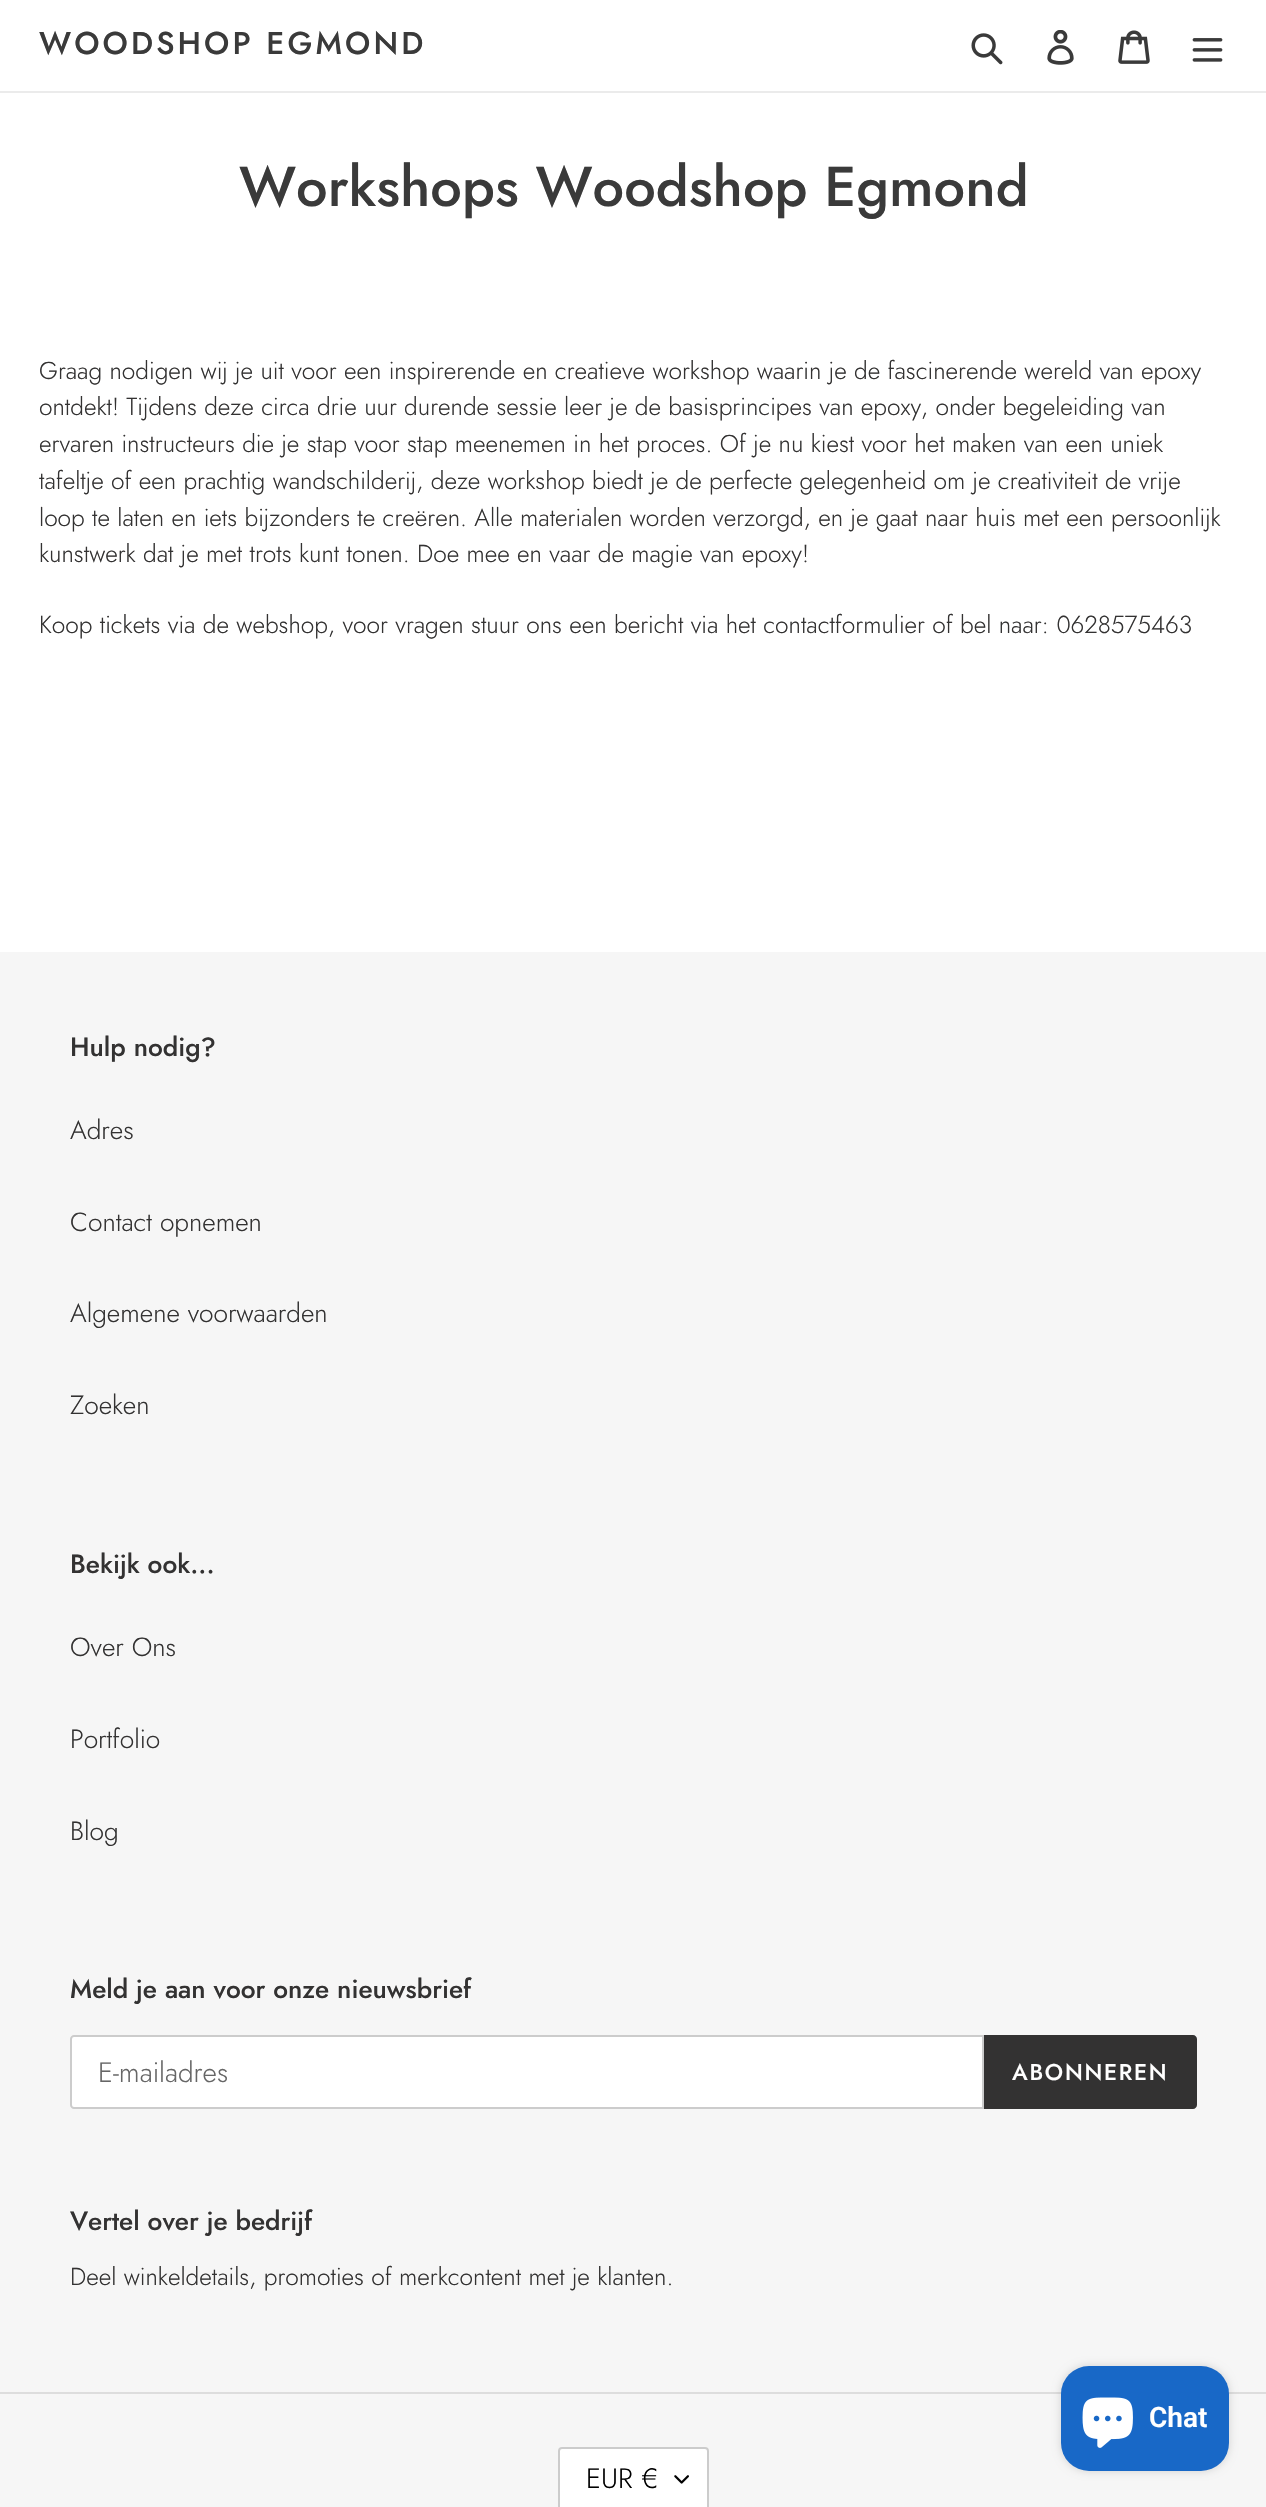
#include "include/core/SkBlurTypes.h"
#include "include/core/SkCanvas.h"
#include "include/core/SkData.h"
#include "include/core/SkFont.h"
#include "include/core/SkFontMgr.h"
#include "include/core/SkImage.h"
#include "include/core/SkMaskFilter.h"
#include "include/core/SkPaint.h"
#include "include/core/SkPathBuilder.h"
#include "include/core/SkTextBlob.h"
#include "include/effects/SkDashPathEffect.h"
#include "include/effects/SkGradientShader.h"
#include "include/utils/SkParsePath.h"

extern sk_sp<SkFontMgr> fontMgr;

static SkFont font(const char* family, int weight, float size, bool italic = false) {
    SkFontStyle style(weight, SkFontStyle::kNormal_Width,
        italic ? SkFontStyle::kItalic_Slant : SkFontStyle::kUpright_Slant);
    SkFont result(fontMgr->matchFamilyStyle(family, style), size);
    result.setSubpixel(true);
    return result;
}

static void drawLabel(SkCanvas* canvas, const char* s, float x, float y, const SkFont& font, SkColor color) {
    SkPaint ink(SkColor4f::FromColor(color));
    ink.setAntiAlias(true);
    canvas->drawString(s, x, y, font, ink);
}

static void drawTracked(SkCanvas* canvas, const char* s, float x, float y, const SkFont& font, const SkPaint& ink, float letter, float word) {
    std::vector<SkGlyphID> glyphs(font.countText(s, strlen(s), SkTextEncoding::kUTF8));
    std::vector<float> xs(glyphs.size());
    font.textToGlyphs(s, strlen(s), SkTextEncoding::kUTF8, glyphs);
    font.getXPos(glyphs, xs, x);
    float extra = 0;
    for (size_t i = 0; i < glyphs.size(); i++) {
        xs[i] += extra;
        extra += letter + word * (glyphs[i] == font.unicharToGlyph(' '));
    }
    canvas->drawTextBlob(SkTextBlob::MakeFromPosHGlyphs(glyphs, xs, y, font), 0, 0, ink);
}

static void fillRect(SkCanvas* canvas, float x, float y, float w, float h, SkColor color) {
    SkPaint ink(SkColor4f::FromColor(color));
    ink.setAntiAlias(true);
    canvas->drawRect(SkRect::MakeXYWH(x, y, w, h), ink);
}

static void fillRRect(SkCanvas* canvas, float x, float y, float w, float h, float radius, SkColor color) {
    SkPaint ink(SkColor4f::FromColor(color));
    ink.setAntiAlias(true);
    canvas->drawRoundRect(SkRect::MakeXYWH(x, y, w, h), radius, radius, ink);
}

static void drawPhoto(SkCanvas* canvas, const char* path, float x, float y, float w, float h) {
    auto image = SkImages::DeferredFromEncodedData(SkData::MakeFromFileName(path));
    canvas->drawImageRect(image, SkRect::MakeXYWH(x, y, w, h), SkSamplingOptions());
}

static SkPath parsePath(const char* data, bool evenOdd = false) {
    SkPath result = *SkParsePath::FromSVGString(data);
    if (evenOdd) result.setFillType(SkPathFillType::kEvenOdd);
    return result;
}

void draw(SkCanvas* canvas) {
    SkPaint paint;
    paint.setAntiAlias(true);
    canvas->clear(0xFFFFFFFF);
    fillRect(canvas, 0, 91, 1266, 2, 0xFFEBEBEB);
    SkFont font1 = font("Jost", 500, 31.5f);
    paint.setColor(0xFF3A3A3A);
    drawTracked(canvas, "WOODSHOP EGMOND", 39, 54, font1, paint, 3.1f, 0);
    drawPhoto(canvas, "assets/img1.png", 971, 33, 32, 32);
    drawPhoto(canvas, "assets/img2.png", 1047, 30, 27, 35);
    drawPhoto(canvas, "assets/img3.png", 1118, 30, 32, 34);
    drawPhoto(canvas, "assets/img4.png", 1192, 38, 31, 24);
    SkFont font2 = font("Jost", 500, 56);
    drawLabel(canvas, "Workshops Woodshop Egmond", 239, 206, font2, 0xFF3A3A3A);
    SkFont font3 = font("Jost", 300, 24.5f);
    drawLabel(canvas, "Graag nodigen wij je uit voor een inspirerende en creatieve workshop waarin je de fascinerende wereld van epoxy", 39, 379, font3, 0xFF333232);
    drawLabel(canvas, "ontdekt! Tijdens deze circa drie uur durende sessie leer je de basisprincipes van epoxy, onder begeleiding van", 39, 415, font3, 0xFF333232);
    drawLabel(canvas, "ervaren instructeurs die je stap voor stap meenemen in het proces. Of je nu kiest voor het maken van een uniek", 39, 452, font3, 0xFF333232);
    drawLabel(canvas, "tafeltje of een prachtig wandschilderij, deze workshop biedt je de perfecte gelegenheid om je creativiteit de vrije", 39, 489, font3, 0xFF333232);
    drawLabel(canvas, "loop te laten en iets bijzonders te creëren. Alle materialen worden verzorgd, en je gaat naar huis met een persoonlijk", 39, 526, font3, 0xFF333232);
    drawLabel(canvas, "kunstwerk dat je met trots kunt tonen. Doe mee en vaar de magie van epoxy!", 39, 562, font3, 0xFF333232);
    drawLabel(canvas, "Koop tickets via de webshop, voor vragen stuur ons een bericht via het contactformulier of bel naar: 0628575463", 39, 633, font3, 0xFF333232);
    fillRect(canvas, 0, 952, 1266, 1555, 0xFFF6F6F6);
    SkFont font4 = font("Jost", 500, 26.25f);
    drawLabel(canvas, "Hulp nodig?", 70, 1056, font4, 0xFF333232);
    SkFont font5 = font("Jost", 300, 26.25f);
    drawLabel(canvas, "Adres", 70, 1139, font5, 0xFF333232);
    drawLabel(canvas, "Contact opnemen", 70, 1231, font5, 0xFF333232);
    drawLabel(canvas, "Algemene voorwaarden", 70, 1322, font5, 0xFF333232);
    drawLabel(canvas, "Zoeken", 70, 1414, font5, 0xFF333232);
    drawLabel(canvas, "Bekijk ook...", 70, 1573, font4, 0xFF333232);
    drawLabel(canvas, "Over Ons", 70, 1656, font5, 0xFF333232);
    drawLabel(canvas, "Portfolio", 70, 1748, font5, 0xFF333232);
    drawLabel(canvas, "Blog", 70, 1840, font5, 0xFF333232);
    drawLabel(canvas, "Meld je aan voor onze nieuwsbrief", 70, 1998, font4, 0xFF333232);
    paint.setColor(0xFFFFFFFF);
    canvas->drawPath(parsePath("M74 2036H983V2108H74C72.5 2108 71 2106.5 71 2105V2039C71 2037.5 72.5 2036 74 2036Z"), paint);
    paint.setStroke(true);
    paint.setStrokeWidth(2);
    paint.setColor(0xFFCCCCCC);
    canvas->drawPath(parsePath("M74 2036H983V2108H74C72.5 2108 71 2106.5 71 2105V2039C71 2037.5 72.5 2036 74 2036Z"), paint);
    SkFont font6 = font("Jost", 300, 28);
    drawLabel(canvas, "E-mailadres", 98, 2082, font6, 0xFF666666);
    paint.setStroke(false);
    paint.setColor(0xFF333232);
    canvas->drawPath(parsePath("M984 2035H1193C1195 2035 1197 2037 1197 2039V2105C1197 2107 1195 2109 1193 2109H984Z"), paint);
    SkFont font7 = font("Jost", 500, 22.75f);
    paint.setColor(0xFFFFFFFF);
    drawTracked(canvas, "ABONNEREN", 1012, 2080, font7, paint, 1.75f, 0);
    drawLabel(canvas, "Vertel over je bedrijf", 70, 2230, font4, 0xFF333232);
    drawLabel(canvas, "Deel winkeldetails, promoties of merkcontent met je klanten.", 70, 2285, font3, 0xFF333232);
    fillRect(canvas, 0, 2392, 1266, 2, 0xFFDDDDDD);
    fillRRect(canvas, 558, 2447, 151, 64, 4, 0xFFFFFFFF);
    drawPhoto(canvas, "assets/img5.png", 674, 2475, 15, 9);
    paint.setStroke(true);
    paint.setColor(0xFFCCCCCC);
    canvas->drawRoundRect(SkRect::MakeXYWH(559, 2448, 149, 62), 3, 3, paint);
    drawLabel(canvas, "EUR €", 586, 2488, font6, 0xFF000000);
    paint.setStroke(false);
    paint.setColor(0x26000000);
    paint.setMaskFilter(SkMaskFilter::MakeBlur(kNormal_SkBlurStyle, 4.5f));
    canvas->drawRoundRect(SkRect::MakeXYWH(1061, 2366, 168, 105), 28, 28, paint);
    paint.setMaskFilter(nullptr);
    fillRRect(canvas, 1061, 2366, 168, 105, 28, 0xFF1868C7);
    drawPhoto(canvas, "assets/img6.png", 1082, 2397, 51, 51);
    SkFont font8 = font("Roboto", 600, 28);
    drawLabel(canvas, "Chat", 1149, 2427, font8, 0xFFFFFFFF);
}
